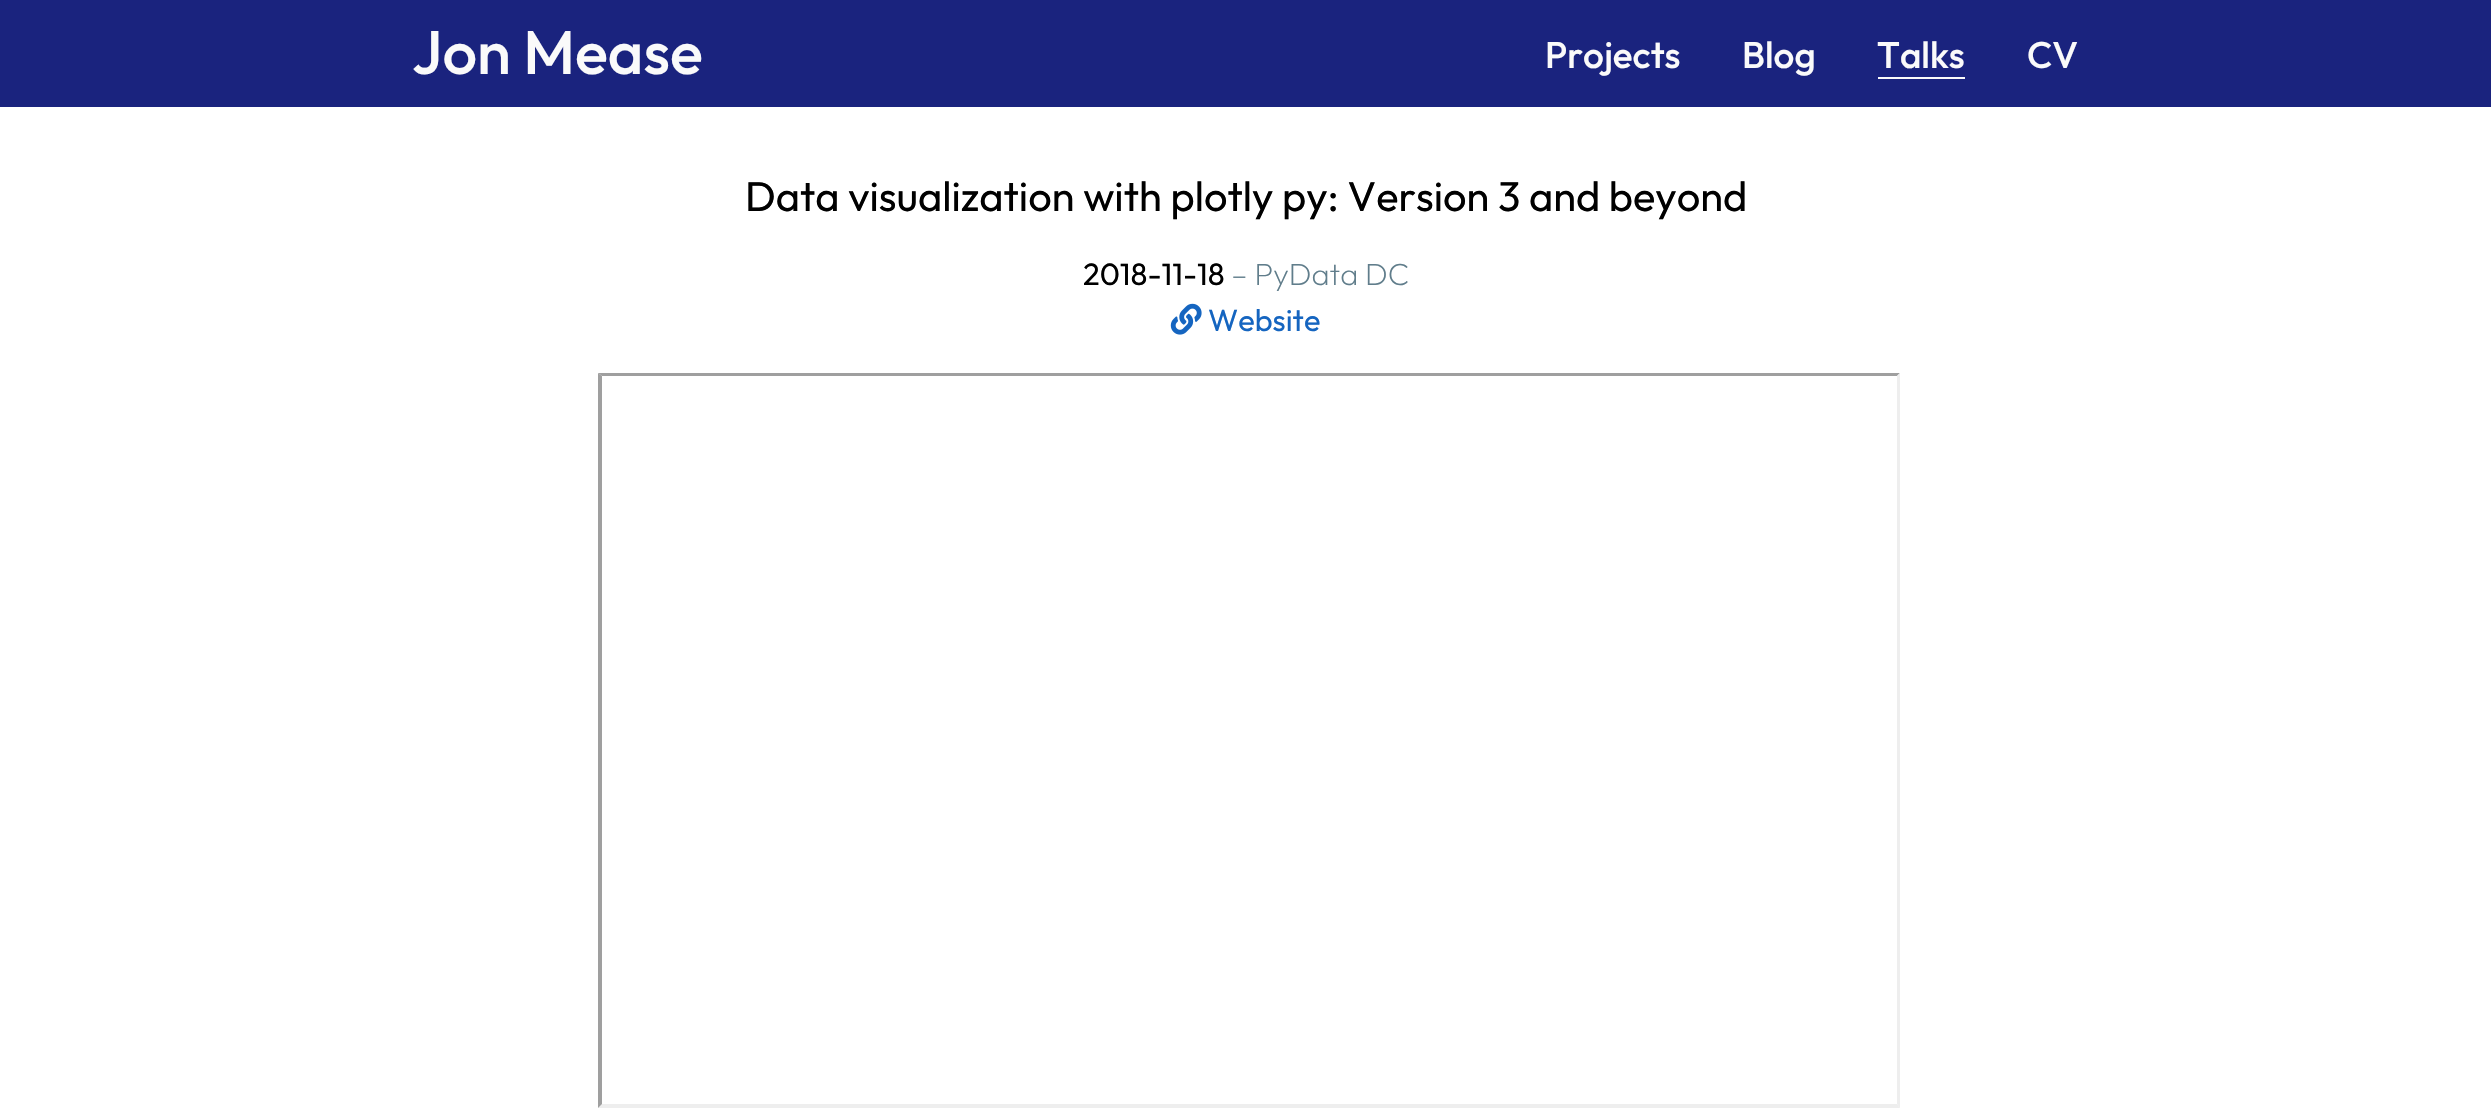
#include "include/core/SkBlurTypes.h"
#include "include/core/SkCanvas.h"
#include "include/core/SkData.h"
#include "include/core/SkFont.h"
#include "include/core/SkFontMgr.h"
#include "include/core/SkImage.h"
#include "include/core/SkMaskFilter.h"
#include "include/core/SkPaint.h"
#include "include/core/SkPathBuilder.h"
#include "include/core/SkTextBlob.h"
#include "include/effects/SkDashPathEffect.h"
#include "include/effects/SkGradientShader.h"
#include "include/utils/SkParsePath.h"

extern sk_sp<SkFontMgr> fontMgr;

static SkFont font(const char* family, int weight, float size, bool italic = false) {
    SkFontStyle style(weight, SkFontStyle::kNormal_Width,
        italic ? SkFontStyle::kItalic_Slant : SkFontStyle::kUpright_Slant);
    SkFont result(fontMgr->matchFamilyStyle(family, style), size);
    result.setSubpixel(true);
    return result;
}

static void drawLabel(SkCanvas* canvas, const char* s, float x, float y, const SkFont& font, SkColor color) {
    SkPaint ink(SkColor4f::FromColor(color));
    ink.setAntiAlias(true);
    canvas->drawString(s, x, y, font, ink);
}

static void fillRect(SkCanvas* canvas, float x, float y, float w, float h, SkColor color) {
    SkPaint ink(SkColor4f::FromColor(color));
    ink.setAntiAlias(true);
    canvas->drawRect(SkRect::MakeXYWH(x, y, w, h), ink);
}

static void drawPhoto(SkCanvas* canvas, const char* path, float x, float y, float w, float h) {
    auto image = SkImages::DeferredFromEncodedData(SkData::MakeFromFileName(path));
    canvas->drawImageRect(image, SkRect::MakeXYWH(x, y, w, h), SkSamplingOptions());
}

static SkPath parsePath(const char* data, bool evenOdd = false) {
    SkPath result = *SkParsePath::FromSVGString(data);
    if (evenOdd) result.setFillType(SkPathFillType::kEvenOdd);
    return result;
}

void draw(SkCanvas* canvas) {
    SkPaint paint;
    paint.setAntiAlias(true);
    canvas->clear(0xFFFFFFFF);
    fillRect(canvas, 0, 0, 2491, 107, 0xFF1A237E);
    SkFont font1 = font("Outfit", 500, 61.5f);
    drawLabel(canvas, "Jon Mease", 412, 74, font1, 0xFFFAFAFA);
    SkFont font2 = font("Outfit", 500, 37);
    drawLabel(canvas, "Projects", 1545, 68, font2, 0xFFFAFAFA);
    drawLabel(canvas, "Blog", 1742, 68, font2, 0xFFFAFAFA);
    drawLabel(canvas, "Talks", 1877, 68, font2, 0xFFFAFAFA);
    fillRect(canvas, 1878, 77, 87, 2, 0xFFFAFAFA);
    drawLabel(canvas, "CV", 2027, 68, font2, 0xFFFAFAFA);
    SkFont font3 = font("Outfit", 400, 41.6f);
    drawLabel(canvas, "Data visualization with plotly py: Version 3 and beyond", 745, 211, font3, 0xFF000000);
    SkFont font4 = font("Outfit", 400, 30.75f);
    drawLabel(canvas, "2018-11-18", 1083, 285, font4, 0xFF000000);
    SkFont font5 = font("Outfit", 200, 30.75f);
    drawLabel(canvas, "– PyData DC", 1231, 285, font5, 0xFF607D8B);
    drawPhoto(canvas, "assets/img1.png", 1170, 303, 32, 32);
    drawLabel(canvas, "Website", 1208, 331, font4, 0xFF1565C0);
    paint.setColor(0xFF9F9F9F);
    canvas->drawPath(parsePath("M598 373H1900L1897 376H602Z"), paint);
    paint.setColor(0xFFEEEEEE);
    canvas->drawPath(parsePath("M1900 373V1108L1897 1104V376Z"), paint);
    canvas->drawPath(parsePath("M1900 1108H598L602 1104H1897Z"), paint);
    paint.setColor(0xFF9F9F9F);
    canvas->drawPath(parsePath("M598 1108V373L602 376V1104Z"), paint);
}
